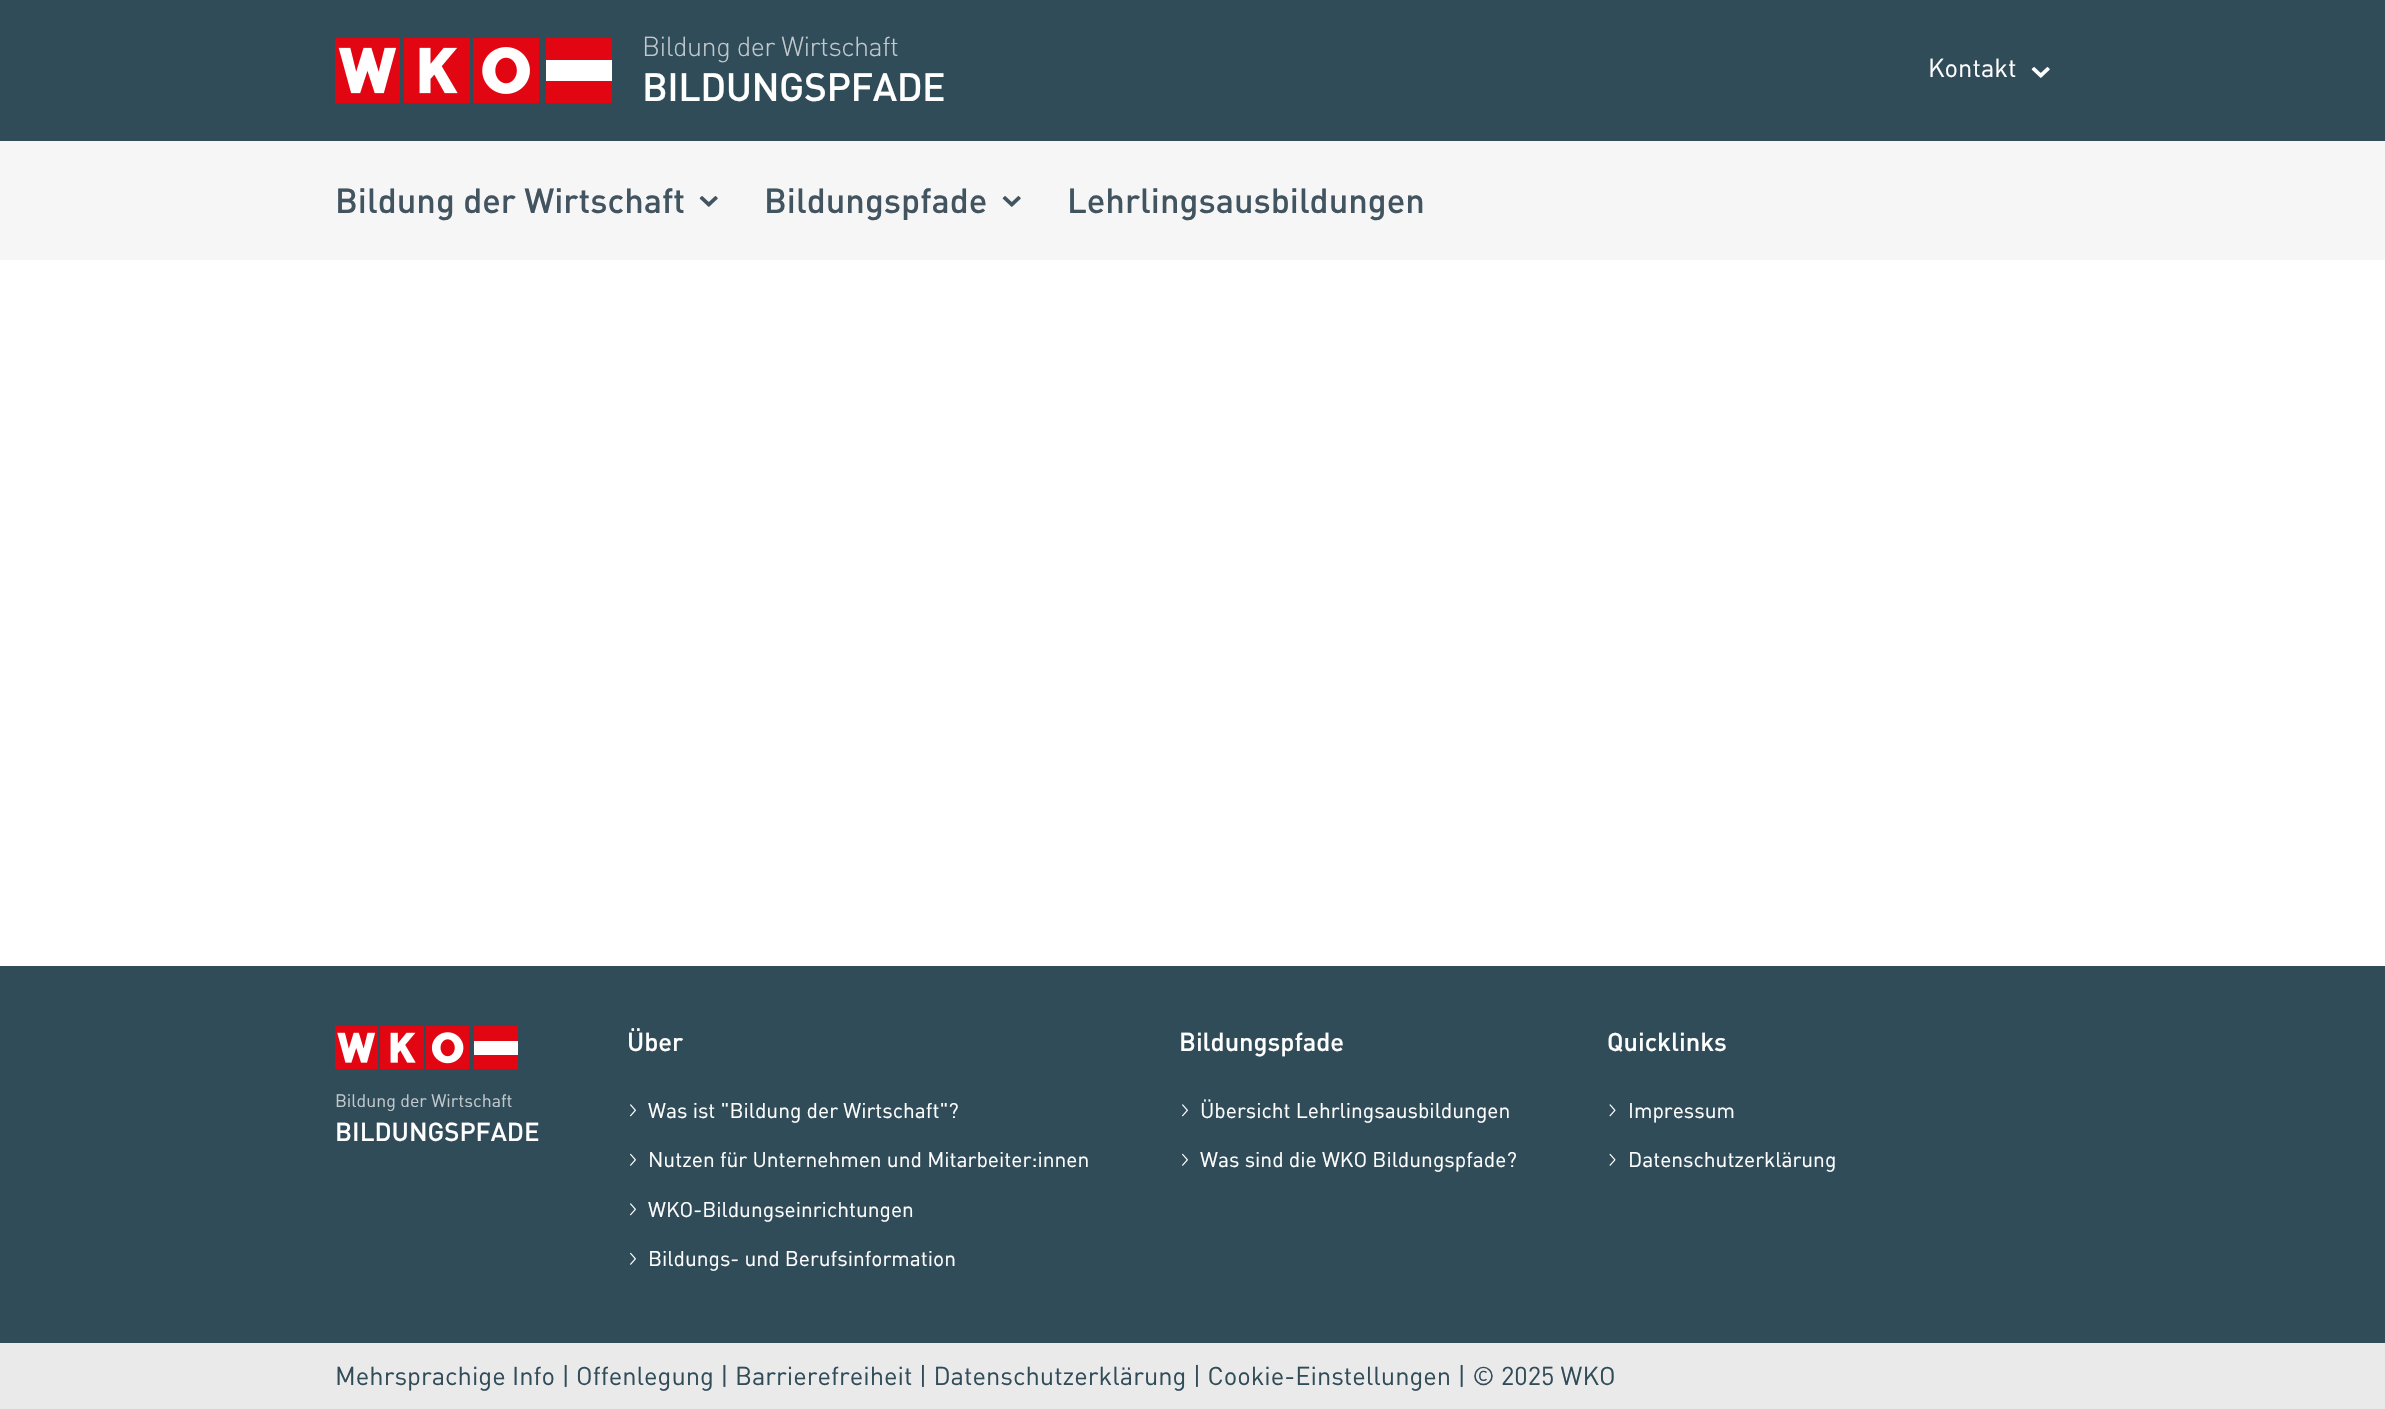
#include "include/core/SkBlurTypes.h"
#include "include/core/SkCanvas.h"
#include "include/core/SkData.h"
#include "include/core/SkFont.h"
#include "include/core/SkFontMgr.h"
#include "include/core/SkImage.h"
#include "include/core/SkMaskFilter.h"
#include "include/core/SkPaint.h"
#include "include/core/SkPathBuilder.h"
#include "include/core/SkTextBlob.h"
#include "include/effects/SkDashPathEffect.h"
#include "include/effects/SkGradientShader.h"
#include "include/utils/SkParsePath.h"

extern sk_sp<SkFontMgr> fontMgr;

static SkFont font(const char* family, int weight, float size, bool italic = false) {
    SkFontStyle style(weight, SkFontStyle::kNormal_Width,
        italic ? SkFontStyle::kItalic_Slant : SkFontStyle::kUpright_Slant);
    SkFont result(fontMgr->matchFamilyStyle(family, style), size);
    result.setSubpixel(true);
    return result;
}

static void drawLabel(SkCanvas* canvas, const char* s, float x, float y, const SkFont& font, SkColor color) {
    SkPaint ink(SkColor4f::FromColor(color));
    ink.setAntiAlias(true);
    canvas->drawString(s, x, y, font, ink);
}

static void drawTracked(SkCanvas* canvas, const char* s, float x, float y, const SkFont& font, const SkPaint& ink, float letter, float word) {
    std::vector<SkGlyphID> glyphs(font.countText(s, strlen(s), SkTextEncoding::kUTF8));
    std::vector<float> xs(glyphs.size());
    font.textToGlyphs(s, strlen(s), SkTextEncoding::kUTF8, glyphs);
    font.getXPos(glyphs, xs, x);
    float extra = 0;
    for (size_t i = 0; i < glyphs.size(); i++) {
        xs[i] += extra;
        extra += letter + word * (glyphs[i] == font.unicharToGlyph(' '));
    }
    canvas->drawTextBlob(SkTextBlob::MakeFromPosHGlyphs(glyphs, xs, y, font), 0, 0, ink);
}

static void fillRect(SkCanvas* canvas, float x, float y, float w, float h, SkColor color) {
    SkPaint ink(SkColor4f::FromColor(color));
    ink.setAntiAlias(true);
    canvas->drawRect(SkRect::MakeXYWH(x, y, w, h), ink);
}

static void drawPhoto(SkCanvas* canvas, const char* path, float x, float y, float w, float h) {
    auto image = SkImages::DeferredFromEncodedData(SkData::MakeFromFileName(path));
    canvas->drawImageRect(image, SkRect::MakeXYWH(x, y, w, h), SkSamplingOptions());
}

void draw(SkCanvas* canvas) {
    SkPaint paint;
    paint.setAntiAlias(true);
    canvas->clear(0xFFFFFFFF);
    fillRect(canvas, 0, 0, 2385, 141, 0xFF304C59);
    drawPhoto(canvas, "assets/img1.png", 335, 38, 277, 65);
    SkFont font1 = font("DIN", 300, 27);
    paint.setColor(0xFFC1C9CD);
    drawTracked(canvas, "Bildung der Wirtschaft", 642, 56, font1, paint, -0.5f, 0);
    SkFont font2 = font("DIN", 500, 39);
    paint.setColor(0xFFFFFFFF);
    drawTracked(canvas, "BILDUNGSPFADE", 642, 101, font2, paint, -0.5f, 0);
    SkFont font3 = font("DIN", 400, 25.5f);
    drawLabel(canvas, "Kontakt", 1928, 77, font3, 0xFFFFFFFF);
    drawPhoto(canvas, "assets/img2.png", 2031, 67, 19, 11);
    fillRect(canvas, 0, 141, 2385, 119, 0xFFF6F6F6);
    SkFont font4 = font("DIN", 500, 34.5f);
    drawLabel(canvas, "Bildung der Wirtschaft", 335, 213, font4, 0xFF41545F);
    drawPhoto(canvas, "assets/img3.png", 699, 196, 19, 11);
    drawLabel(canvas, "Bildungspfade", 764, 213, font4, 0xFF41545F);
    drawPhoto(canvas, "assets/img3.png", 1002, 196, 19, 11);
    drawLabel(canvas, "Lehrlingsausbildungen", 1067, 213, font4, 0xFF41545F);
    fillRect(canvas, 0, 966, 2385, 377, 0xFF304C59);
    drawPhoto(canvas, "assets/img4.png", 335, 1026, 183, 43);
    SkFont font5 = font("DIN", 400, 17.75f);
    drawLabel(canvas, "Bildung der Wirtschaft", 335, 1107, font5, 0xFFC1C9CD);
    SkFont font6 = font("DIN", 500, 25.75f);
    drawLabel(canvas, "BILDUNGSPFADE", 335, 1141, font6, 0xFFFFFFFF);
    SkFont font7 = font("DIN", 500, 25.5f);
    drawLabel(canvas, "Über", 627, 1051, font7, 0xFFFFFFFF);
    drawPhoto(canvas, "assets/img5.png", 630, 1104, 6, 13);
    SkFont font8 = font("DIN", 400, 21);
    drawLabel(canvas, "Was ist \"Bildung der Wirtschaft\"?", 648, 1118, font8, 0xFFFFFFFF);
    drawPhoto(canvas, "assets/img6.png", 630, 1153, 6, 13);
    drawLabel(canvas, "Nutzen für Unternehmen und Mitarbeiter:innen", 648, 1167, font8, 0xFFFFFFFF);
    drawPhoto(canvas, "assets/img5.png", 630, 1203, 6, 13);
    drawLabel(canvas, "WKO-Bildungseinrichtungen", 648, 1217, font8, 0xFFFFFFFF);
    drawPhoto(canvas, "assets/img6.png", 630, 1252, 6, 13);
    drawLabel(canvas, "Bildungs- und Berufsinformation", 648, 1266, font8, 0xFFFFFFFF);
    drawLabel(canvas, "Bildungspfade", 1179, 1051, font7, 0xFFFFFFFF);
    drawPhoto(canvas, "assets/img5.png", 1182, 1104, 6, 13);
    drawLabel(canvas, "Übersicht Lehrlingsausbildungen", 1200, 1118, font8, 0xFFFFFFFF);
    drawPhoto(canvas, "assets/img6.png", 1182, 1153, 6, 13);
    drawLabel(canvas, "Was sind die WKO Bildungspfade?", 1200, 1167, font8, 0xFFFFFFFF);
    drawLabel(canvas, "Quicklinks", 1607, 1051, font7, 0xFFFFFFFF);
    drawPhoto(canvas, "assets/img7.png", 1609, 1104, 7, 13);
    drawLabel(canvas, "Impressum", 1628, 1118, font8, 0xFFFFFFFF);
    drawPhoto(canvas, "assets/img8.png", 1609, 1153, 7, 13);
    drawLabel(canvas, "Datenschutzerklärung", 1628, 1167, font8, 0xFFFFFFFF);
    fillRect(canvas, 0, 1343, 2385, 66, 0xFFEAEAEA);
    drawLabel(canvas, "Mehrsprachige Info | Offenlegung | Barrierefreiheit | Datenschutzerklärung | Cookie-Einstellungen | © 2025 WKO", 335, 1385, font3, 0xFF304C59);
}
